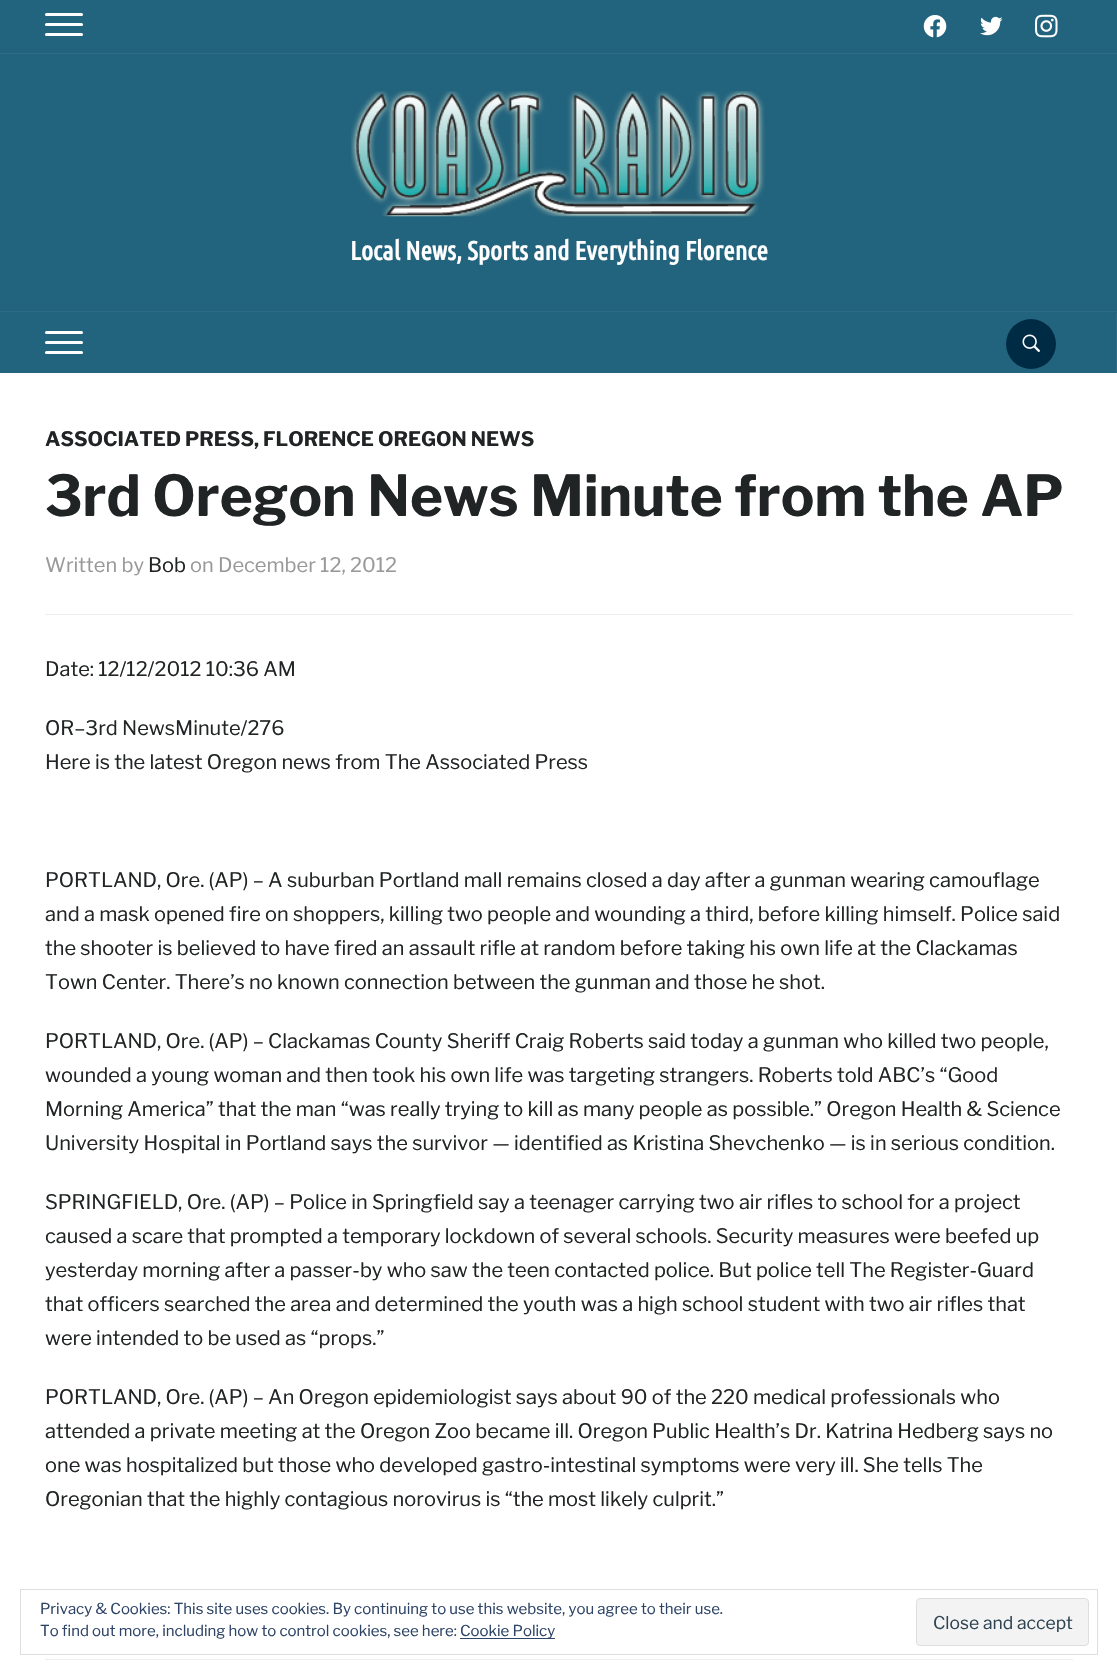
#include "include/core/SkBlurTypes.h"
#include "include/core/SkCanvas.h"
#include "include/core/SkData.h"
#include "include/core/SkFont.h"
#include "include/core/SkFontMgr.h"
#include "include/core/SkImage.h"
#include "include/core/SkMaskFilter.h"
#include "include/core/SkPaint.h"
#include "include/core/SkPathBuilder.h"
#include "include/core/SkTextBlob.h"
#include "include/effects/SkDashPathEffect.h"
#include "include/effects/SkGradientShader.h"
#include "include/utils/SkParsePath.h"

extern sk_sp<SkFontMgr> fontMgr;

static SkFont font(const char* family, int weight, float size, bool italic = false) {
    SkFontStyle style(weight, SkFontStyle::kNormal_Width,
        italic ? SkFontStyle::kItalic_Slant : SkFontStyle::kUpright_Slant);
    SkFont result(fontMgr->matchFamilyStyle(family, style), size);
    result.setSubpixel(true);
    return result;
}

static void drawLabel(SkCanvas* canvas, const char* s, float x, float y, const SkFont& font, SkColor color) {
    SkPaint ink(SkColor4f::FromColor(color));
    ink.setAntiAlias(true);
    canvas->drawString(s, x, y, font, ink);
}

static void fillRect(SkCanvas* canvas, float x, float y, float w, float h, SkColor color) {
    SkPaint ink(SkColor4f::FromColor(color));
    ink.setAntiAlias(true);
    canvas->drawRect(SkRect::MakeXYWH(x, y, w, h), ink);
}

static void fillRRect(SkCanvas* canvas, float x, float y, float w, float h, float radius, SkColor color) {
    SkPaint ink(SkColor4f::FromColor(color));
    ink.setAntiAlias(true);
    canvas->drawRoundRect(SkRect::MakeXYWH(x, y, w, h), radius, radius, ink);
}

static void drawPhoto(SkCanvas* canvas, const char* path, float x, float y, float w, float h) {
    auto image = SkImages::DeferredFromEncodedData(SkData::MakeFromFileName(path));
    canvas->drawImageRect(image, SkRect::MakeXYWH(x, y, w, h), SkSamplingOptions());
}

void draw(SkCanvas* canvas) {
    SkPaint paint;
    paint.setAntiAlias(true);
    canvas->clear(0xFFFFFFFF);
    fillRect(canvas, 0, 0, 1117, 373, 0xFF22647D);
    fillRect(canvas, 0, 53, 1117, 1, 0xFF2D6C84);
    fillRRect(canvas, 45, 13, 38, 3, 1.5f, 0xFFFFFFFF);
    fillRRect(canvas, 45, 23, 38, 3, 1.5f, 0xFFFFFFFF);
    fillRRect(canvas, 45, 33, 38, 3, 1.5f, 0xFFFFFFFF);
    drawPhoto(canvas, "assets/img1.png", 923, 15, 24, 23);
    drawPhoto(canvas, "assets/img2.png", 980, 16, 23, 20);
    drawPhoto(canvas, "assets/img3.png", 1035, 14, 23, 24);
    drawPhoto(canvas, "assets/img4.png", 351, 91, 414, 126);
    SkFont font1 = font("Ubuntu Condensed", 700, 26.25f);
    drawLabel(canvas, "Local News, Sports and Everything Florence", 350, 260, font1, 0xFFFFFFFF);
    fillRect(canvas, 0, 311, 1117, 1, 0xFF2D6C84);
    fillRect(canvas, 1116, 313, 1, 60, 0xFF2D6C84);
    fillRRect(canvas, 45, 331, 38, 3, 1.5f, 0xFFFFFFFF);
    fillRRect(canvas, 45, 341, 38, 3, 1.5f, 0xFFFFFFFF);
    fillRRect(canvas, 45, 351, 38, 3, 1.5f, 0xFFFFFFFF);
    paint.setColor(0xFF002B45);
    canvas->drawCircle(1031, 344, 25, paint);
    drawPhoto(canvas, "assets/img5.png", 1022, 334, 18, 18);
    SkFont font2 = font("Libre Franklin", 700, 20);
    drawLabel(canvas, "ASSOCIATED PRESS", 45, 446, font2, 0xFF212425);
    drawLabel(canvas, ",", 254, 446, font2, 0xFF212425);
    drawLabel(canvas, "FLORENCE OREGON NEWS", 263, 446, font2, 0xFF212425);
    SkFont font3 = font("Libre Franklin", 700, 56.25f);
    drawLabel(canvas, "3rd Oregon News Minute from the AP", 45, 516, font3, 0xFF212425);
    fillRect(canvas, 45, 614, 1028, 1, 0xFFEEEEEE);
    SkFont font4 = font("Libre Franklin", 400, 20);
    drawLabel(canvas, "Written by", 45, 572, font4, 0xFF999999);
    drawLabel(canvas, "Bob", 148, 572, font4, 0xFF212425);
    drawLabel(canvas, "on December 12, 2012", 190, 572, font4, 0xFF999999);
    drawLabel(canvas, "Date: 12/12/2012 10:36 AM", 45, 676, font4, 0xFF212425);
    drawLabel(canvas, "OR–3rd NewsMinute/276", 45, 735, font4, 0xFF212425);
    drawLabel(canvas, "Here is the latest Oregon news from The Associated Press", 45, 769, font4, 0xFF212425);
    drawLabel(canvas, "PORTLAND, Ore. (AP) – A suburban Portland mall remains closed a day after a gunman wearing camouflage", 45, 887, font4, 0xFF212425);
    drawLabel(canvas, "and a mask opened fire on shoppers, killing two people and wounding a third, before killing himself. Police said", 45, 921, font4, 0xFF212425);
    drawLabel(canvas, "the shooter is believed to have fired an assault rifle at random before taking his own life at the Clackamas", 45, 955, font4, 0xFF212425);
    drawLabel(canvas, "Town Center. There’s no known connection between the gunman and those he shot.", 45, 989, font4, 0xFF212425);
    drawLabel(canvas, "PORTLAND, Ore. (AP) – Clackamas County Sheriff Craig Roberts said today a gunman who killed two people,", 45, 1048, font4, 0xFF212425);
    drawLabel(canvas, "wounded a young woman and then took his own life was targeting strangers. Roberts told ABC’s “Good", 45, 1082, font4, 0xFF212425);
    drawLabel(canvas, "Morning America” that the man “was really trying to kill as many people as possible.” Oregon Health & Science", 45, 1116, font4, 0xFF212425);
    drawLabel(canvas, "University Hospital in Portland says the survivor — identified as Kristina Shevchenko — is in serious condition.", 45, 1150, font4, 0xFF212425);
    drawLabel(canvas, "SPRINGFIELD, Ore. (AP) – Police in Springfield say a teenager carrying two air rifles to school for a project", 45, 1209, font4, 0xFF212425);
    drawLabel(canvas, "caused a scare that prompted a temporary lockdown of several schools. Security measures were beefed up", 45, 1243, font4, 0xFF212425);
    drawLabel(canvas, "yesterday morning after a passer-by who saw the teen contacted police. But police tell The Register-Guard", 45, 1277, font4, 0xFF212425);
    drawLabel(canvas, "that officers searched the area and determined the youth was a high school student with two air rifles that", 45, 1311, font4, 0xFF212425);
    drawLabel(canvas, "were intended to be used as “props.”", 45, 1345, font4, 0xFF212425);
    drawLabel(canvas, "PORTLAND, Ore. (AP) – An Oregon epidemiologist says about 90 of the 220 medical professionals who", 45, 1404, font4, 0xFF212425);
    drawLabel(canvas, "attended a private meeting at the Oregon Zoo became ill. Oregon Public Health’s Dr. Katrina Hedberg says no", 45, 1438, font4, 0xFF212425);
    drawLabel(canvas, "one was hospitalized but those who developed gastro-intestinal symptoms were very ill. She tells The", 45, 1472, font4, 0xFF212425);
    drawLabel(canvas, "Oregonian that the highly contagious norovirus is “the most likely culprit.”", 45, 1506, font4, 0xFF212425);
    fillRect(canvas, 45, 1659, 1028, 1, 0xFFEEEEEE);
    paint.setStroke(true);
    paint.setStrokeWidth(1);
    paint.setColor(0xFFDEDEDE);
    canvas->drawRect(SkRect::MakeXYWH(20.5f, 1589.5f, 1077, 65), paint);
    SkFont font5 = font("Libre Franklin", 400, 15);
    drawLabel(canvas, "Privacy & Cookies: This site uses cookies. By continuing to use this website, you agree to their use.", 40, 1614, font5, 0xFF2E4467);
    drawLabel(canvas, "To find out more, including how to control cookies, see here:", 40, 1636, font5, 0xFF2E4467);
    fillRect(canvas, 460, 1638, 95, 1, 0xFF2E4467);
    drawLabel(canvas, "Cookie Policy", 460, 1636, font5, 0xFF2E4467);
    paint.setStroke(false);
    paint.setColor(0xFFF3F3F3);
    canvas->drawRoundRect(SkRect::MakeXYWH(916.5f, 1598.5f, 172, 47), 3.5f, 3.5f, paint);
    paint.setStroke(true);
    paint.setColor(0xFFDEDEDE);
    canvas->drawRoundRect(SkRect::MakeXYWH(916.5f, 1598.5f, 172, 47), 3.5f, 3.5f, paint);
    SkFont font6 = font("Libre Franklin", 400, 17.5f);
    drawLabel(canvas, "Close and accept", 933, 1629, font6, 0xFF2E4453);
}
